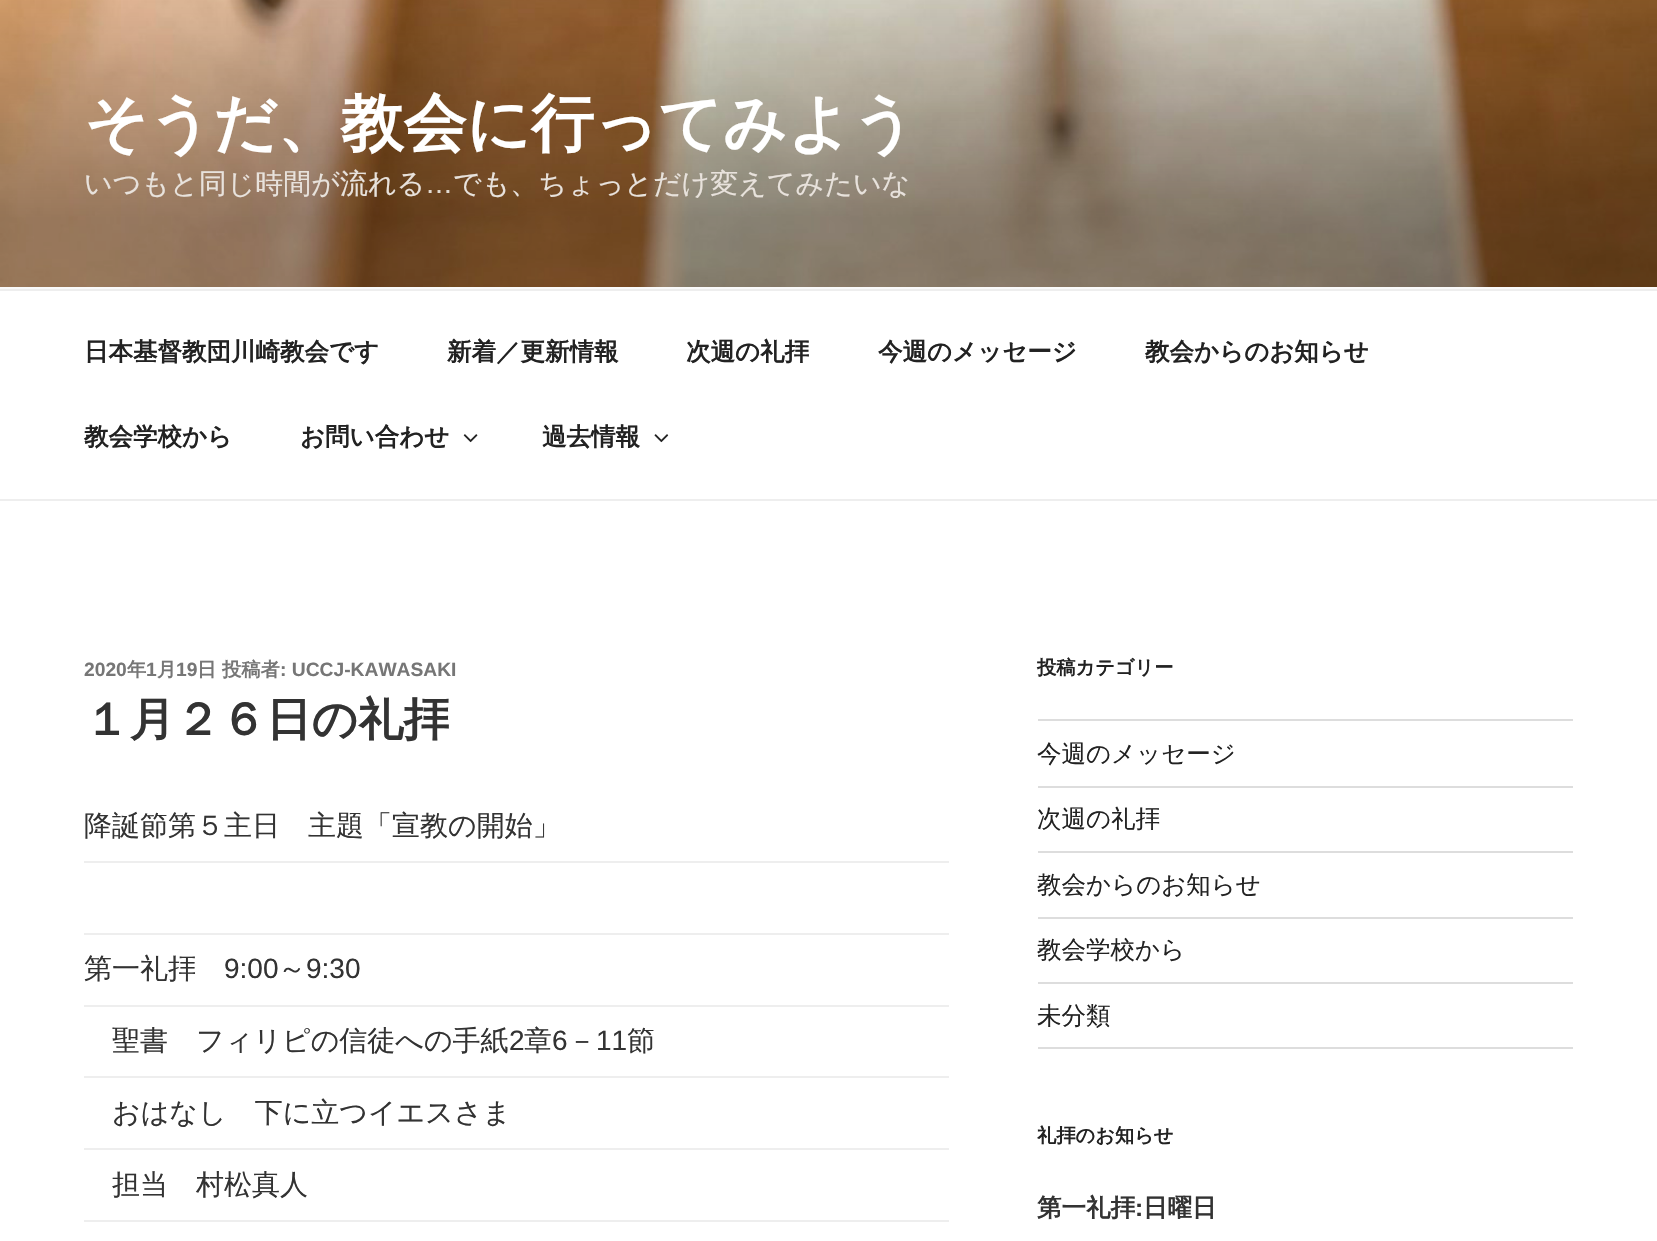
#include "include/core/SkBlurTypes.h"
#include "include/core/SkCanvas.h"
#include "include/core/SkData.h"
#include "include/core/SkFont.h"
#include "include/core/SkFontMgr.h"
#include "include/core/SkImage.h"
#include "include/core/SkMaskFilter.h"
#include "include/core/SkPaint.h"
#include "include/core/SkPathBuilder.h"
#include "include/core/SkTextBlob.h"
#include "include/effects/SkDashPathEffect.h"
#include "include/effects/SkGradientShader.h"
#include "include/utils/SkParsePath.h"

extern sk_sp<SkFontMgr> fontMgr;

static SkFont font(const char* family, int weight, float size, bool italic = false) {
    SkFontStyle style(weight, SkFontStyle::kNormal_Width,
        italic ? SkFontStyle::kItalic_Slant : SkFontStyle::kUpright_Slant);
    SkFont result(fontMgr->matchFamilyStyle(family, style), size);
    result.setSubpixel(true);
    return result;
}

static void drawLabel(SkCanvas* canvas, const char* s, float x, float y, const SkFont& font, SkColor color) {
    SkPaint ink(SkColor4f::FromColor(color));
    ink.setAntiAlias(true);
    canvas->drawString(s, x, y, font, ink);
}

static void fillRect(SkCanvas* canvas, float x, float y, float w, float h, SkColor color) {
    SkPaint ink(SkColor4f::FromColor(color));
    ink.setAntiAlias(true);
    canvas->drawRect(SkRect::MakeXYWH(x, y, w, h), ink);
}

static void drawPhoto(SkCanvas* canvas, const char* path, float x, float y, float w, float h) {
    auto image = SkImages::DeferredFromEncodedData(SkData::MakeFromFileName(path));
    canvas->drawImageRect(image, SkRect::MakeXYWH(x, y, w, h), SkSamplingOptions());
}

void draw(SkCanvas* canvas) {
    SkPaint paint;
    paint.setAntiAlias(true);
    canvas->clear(0xFFFFFFFF);
    fillRect(canvas, 0, 287, 1657, 2, 0xFFFAFAFA);
    drawPhoto(canvas, "assets/img1.png", 0, 0, 1657, 287);
    SkFont font1 = font("WenQuanYi Zen Hei", 700, 63);
    drawLabel(canvas, "そうだ、教会に行ってみよう", 84, 145, font1, 0xFFFFFFFF);
    SkFont font2 = font("WenQuanYi Zen Hei", 500, 28);
    drawLabel(canvas, "いつもと同じ時間が流れる", 84, 193, font2, 0xFFE8E2DC);
    SkFont font3 = font("Liberation Sans", 400, 28);
    drawLabel(canvas, "…", 425, 193, font3, 0xFFE1DAD2);
    drawLabel(canvas, "でも、ちょっとだけ変えてみたいな", 453, 193, font2, 0xFFE8E2DC);
    fillRect(canvas, 0, 289, 1657, 2, 0xFFEEEEEE);
    fillRect(canvas, 0, 499, 1657, 2, 0xFFEEEEEE);
    SkFont font4 = font("WenQuanYi Zen Hei", 700, 24.5f);
    drawLabel(canvas, "日本基督教団川崎教会です", 84, 360, font4, 0xFF222222);
    drawLabel(canvas, "新着／更新情報", 447, 360, font4, 0xFF222222);
    drawLabel(canvas, "次週の礼拝", 686, 360, font4, 0xFF222222);
    drawLabel(canvas, "今週のメッセージ", 878, 360, font4, 0xFF222222);
    drawLabel(canvas, "教会からのお知らせ", 1145, 360, font4, 0xFF222222);
    drawLabel(canvas, "教会学校から", 84, 445, font4, 0xFF222222);
    drawLabel(canvas, "お問い合わせ", 300, 445, font4, 0xFF222222);
    drawPhoto(canvas, "assets/img2.png", 463, 434, 15, 9);
    drawLabel(canvas, "過去情報", 542, 445, font4, 0xFF222222);
    drawPhoto(canvas, "assets/img3.png", 654, 434, 15, 9);
    SkFont font5 = font("Liberation Sans", 700, 19.25f);
    drawLabel(canvas, "2020", 84, 676, font5, 0xFF767676);
    SkFont font6 = font("WenQuanYi Zen Hei", 700, 19.25f);
    drawLabel(canvas, "年", 127, 676, font6, 0xFF767676);
    drawLabel(canvas, "1", 146, 676, font5, 0xFF767676);
    drawLabel(canvas, "月", 157, 676, font6, 0xFF767676);
    drawLabel(canvas, "19", 176, 676, font5, 0xFF767676);
    drawLabel(canvas, "日", 197, 676, font6, 0xFF767676);
    drawLabel(canvas, "投稿者", 222, 676, font6, 0xFF767676);
    drawLabel(canvas, ": UCCJ-KAWASAKI", 280, 676, font5, 0xFF767676);
    SkFont font7 = font("WenQuanYi Zen Hei", 700, 45.5f);
    drawLabel(canvas, "１月２６日の礼拝", 84, 735, font7, 0xFF333333);
    fillRect(canvas, 84, 861, 865, 2, 0xFFEEEEEE);
    drawLabel(canvas, "降誕節第５主日　主題「宣教の開始」", 84, 835, font2, 0xFF333333);
    fillRect(canvas, 84, 933, 865, 2, 0xFFEEEEEE);
    fillRect(canvas, 84, 1005, 865, 2, 0xFFEEEEEE);
    drawLabel(canvas, "第一礼拝", 84, 978, font2, 0xFF333333);
    drawLabel(canvas, "9:00", 224, 978, font3, 0xFF333333);
    drawLabel(canvas, "～", 278, 978, font2, 0xFF333333);
    drawLabel(canvas, "9:30", 306, 978, font3, 0xFF333333);
    fillRect(canvas, 84, 1076, 865, 2, 0xFFEEEEEE);
    drawLabel(canvas, "聖書　フィリピの信徒への手紙", 112, 1050, font2, 0xFF333333);
    drawLabel(canvas, "2", 509, 1050, font3, 0xFF333333);
    drawLabel(canvas, "章", 524, 1050, font2, 0xFF333333);
    drawLabel(canvas, "6", 552, 1050, font3, 0xFF333333);
    drawLabel(canvas, "－", 568, 1050, font2, 0xFF333333);
    drawLabel(canvas, "11", 596, 1050, font3, 0xFF333333);
    drawLabel(canvas, "節", 627, 1050, font2, 0xFF333333);
    fillRect(canvas, 84, 1148, 865, 2, 0xFFEEEEEE);
    drawLabel(canvas, "おはなし　下に立つイエスさま", 112, 1122, font2, 0xFF333333);
    fillRect(canvas, 84, 1220, 865, 2, 0xFFEEEEEE);
    drawLabel(canvas, "担当　村松真人", 112, 1194, font2, 0xFF333333);
    drawLabel(canvas, "投稿カテゴリー", 1037, 674, font6, 0xFF222222);
    fillRect(canvas, 1038, 719, 535, 2, 0xFFDDDDDD);
    fillRect(canvas, 1038, 786, 535, 2, 0xFFDDDDDD);
    SkFont font8 = font("WenQuanYi Zen Hei", 500, 24.5f);
    drawLabel(canvas, "今週のメッセージ", 1037, 762, font8, 0xFF222222);
    fillRect(canvas, 1038, 851, 535, 2, 0xFFDDDDDD);
    drawLabel(canvas, "次週の礼拝", 1037, 827, font8, 0xFF222222);
    fillRect(canvas, 1038, 917, 535, 2, 0xFFDDDDDD);
    drawLabel(canvas, "教会からのお知らせ", 1037, 893, font8, 0xFF222222);
    fillRect(canvas, 1038, 982, 535, 2, 0xFFDDDDDD);
    drawLabel(canvas, "教会学校から", 1037, 958, font8, 0xFF222222);
    fillRect(canvas, 1038, 1047, 535, 2, 0xFFDDDDDD);
    drawLabel(canvas, "未分類", 1037, 1024, font8, 0xFF222222);
    drawLabel(canvas, "礼拝のお知らせ", 1037, 1142, font6, 0xFF222222);
    drawLabel(canvas, "第一礼拝", 1037, 1216, font4, 0xFF333333);
    SkFont font9 = font("Liberation Sans", 700, 24.5f);
    drawLabel(canvas, ":", 1135, 1216, font9, 0xFF333333);
    drawLabel(canvas, "日曜日", 1143, 1216, font4, 0xFF333333);
}
